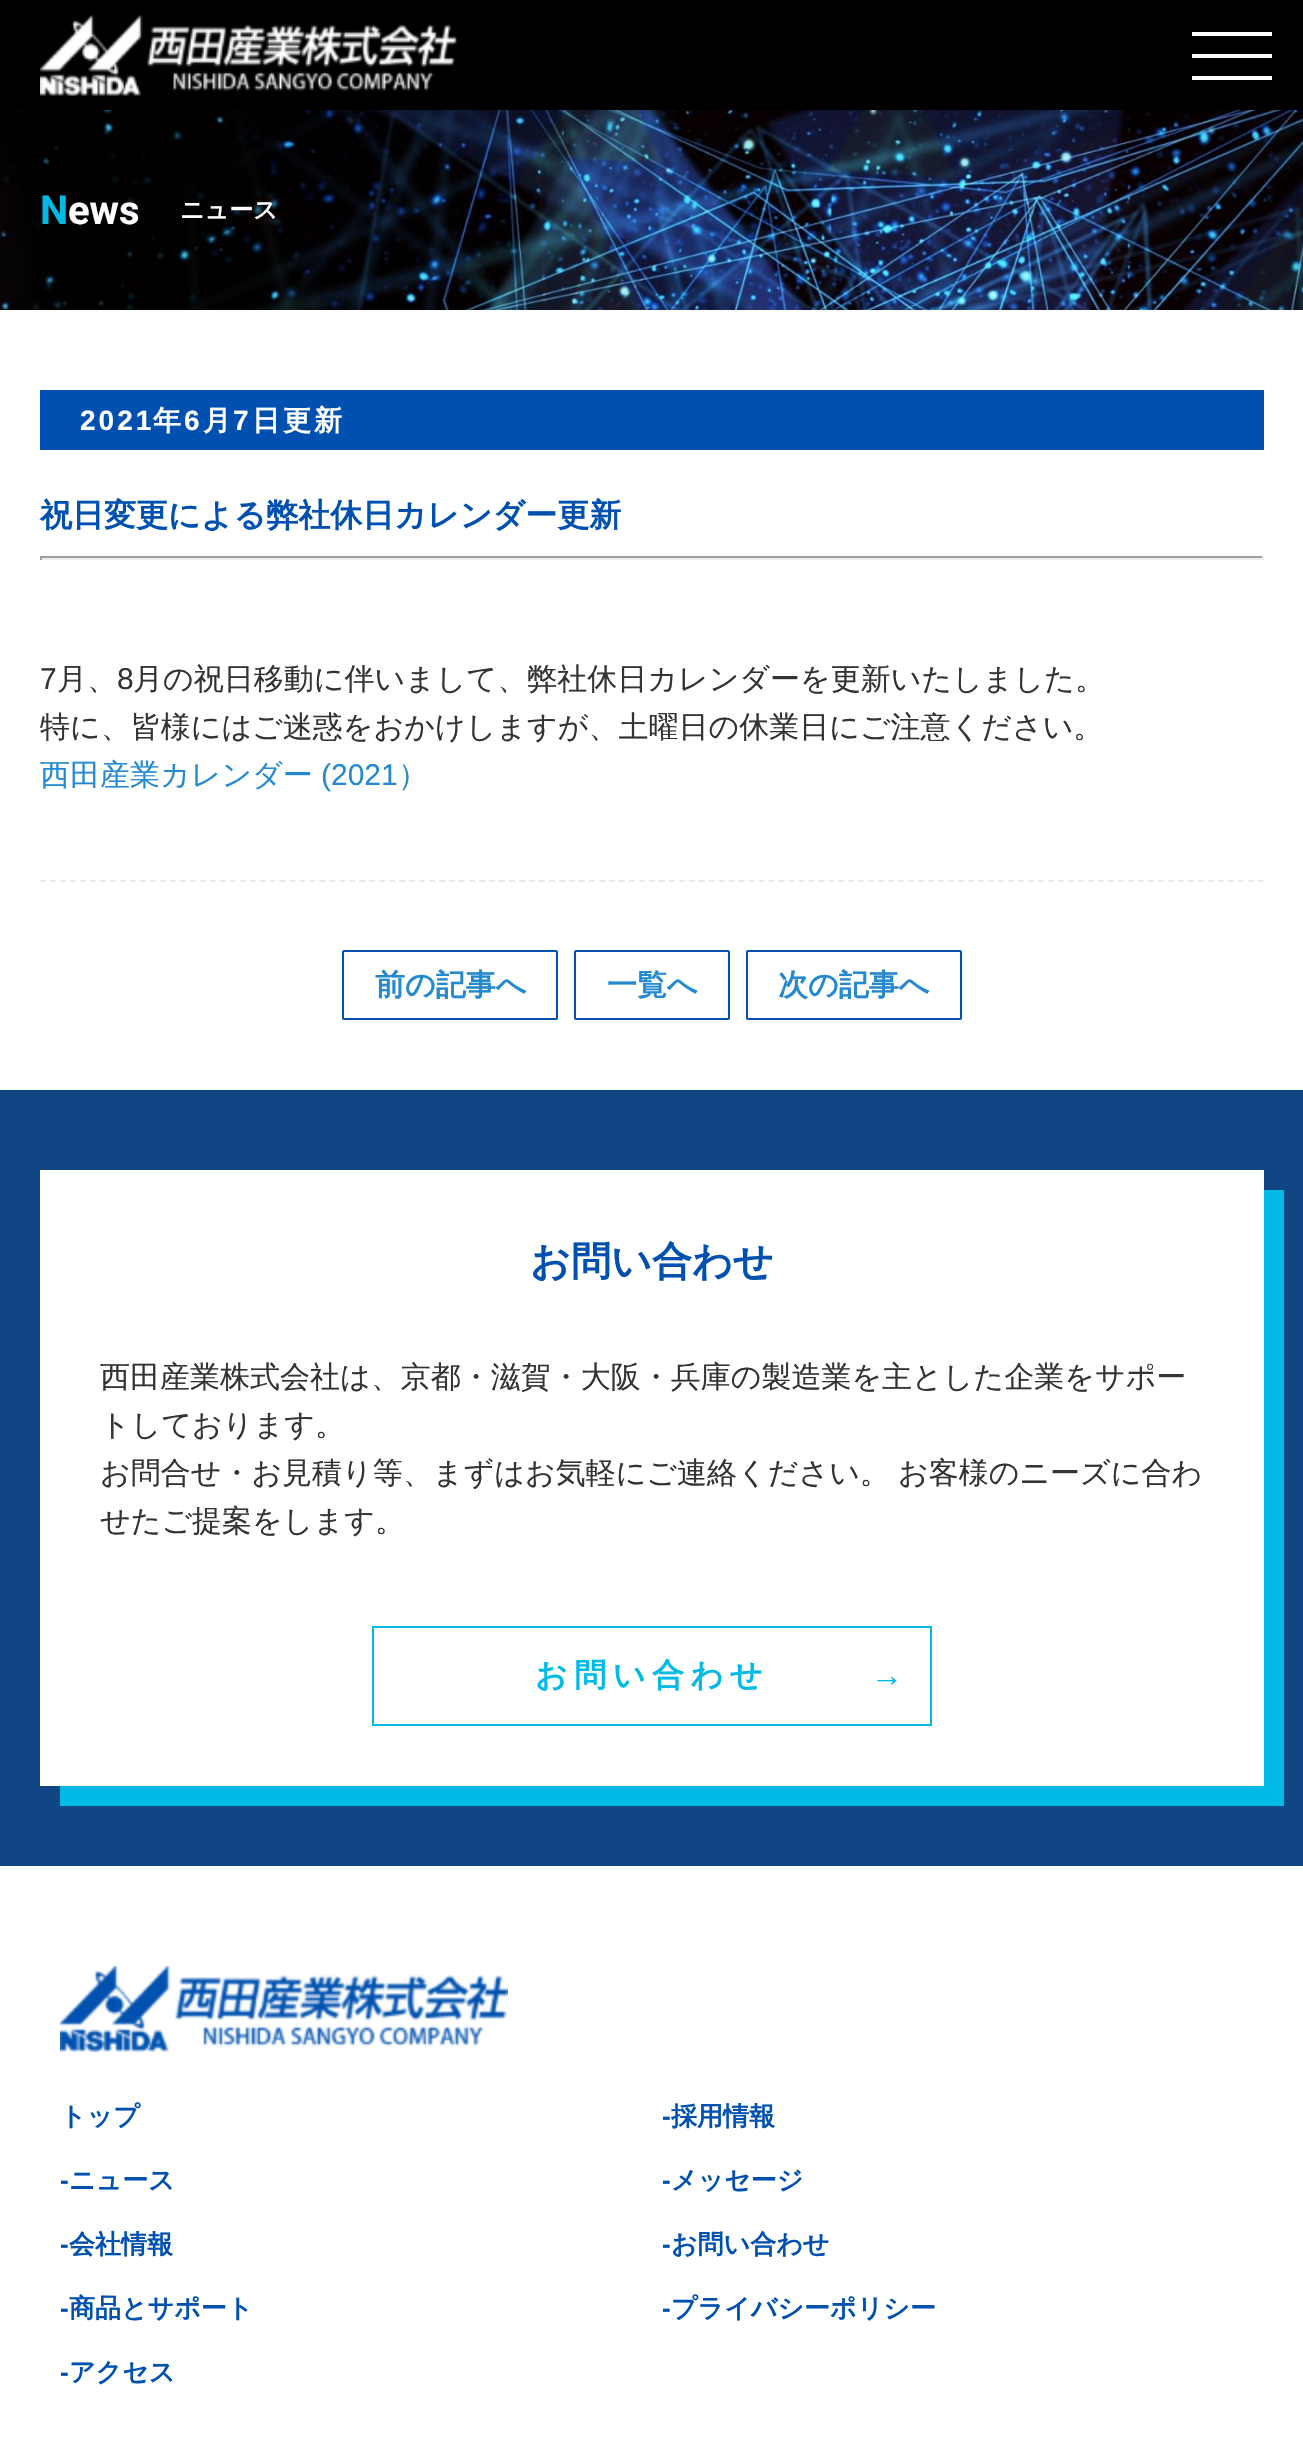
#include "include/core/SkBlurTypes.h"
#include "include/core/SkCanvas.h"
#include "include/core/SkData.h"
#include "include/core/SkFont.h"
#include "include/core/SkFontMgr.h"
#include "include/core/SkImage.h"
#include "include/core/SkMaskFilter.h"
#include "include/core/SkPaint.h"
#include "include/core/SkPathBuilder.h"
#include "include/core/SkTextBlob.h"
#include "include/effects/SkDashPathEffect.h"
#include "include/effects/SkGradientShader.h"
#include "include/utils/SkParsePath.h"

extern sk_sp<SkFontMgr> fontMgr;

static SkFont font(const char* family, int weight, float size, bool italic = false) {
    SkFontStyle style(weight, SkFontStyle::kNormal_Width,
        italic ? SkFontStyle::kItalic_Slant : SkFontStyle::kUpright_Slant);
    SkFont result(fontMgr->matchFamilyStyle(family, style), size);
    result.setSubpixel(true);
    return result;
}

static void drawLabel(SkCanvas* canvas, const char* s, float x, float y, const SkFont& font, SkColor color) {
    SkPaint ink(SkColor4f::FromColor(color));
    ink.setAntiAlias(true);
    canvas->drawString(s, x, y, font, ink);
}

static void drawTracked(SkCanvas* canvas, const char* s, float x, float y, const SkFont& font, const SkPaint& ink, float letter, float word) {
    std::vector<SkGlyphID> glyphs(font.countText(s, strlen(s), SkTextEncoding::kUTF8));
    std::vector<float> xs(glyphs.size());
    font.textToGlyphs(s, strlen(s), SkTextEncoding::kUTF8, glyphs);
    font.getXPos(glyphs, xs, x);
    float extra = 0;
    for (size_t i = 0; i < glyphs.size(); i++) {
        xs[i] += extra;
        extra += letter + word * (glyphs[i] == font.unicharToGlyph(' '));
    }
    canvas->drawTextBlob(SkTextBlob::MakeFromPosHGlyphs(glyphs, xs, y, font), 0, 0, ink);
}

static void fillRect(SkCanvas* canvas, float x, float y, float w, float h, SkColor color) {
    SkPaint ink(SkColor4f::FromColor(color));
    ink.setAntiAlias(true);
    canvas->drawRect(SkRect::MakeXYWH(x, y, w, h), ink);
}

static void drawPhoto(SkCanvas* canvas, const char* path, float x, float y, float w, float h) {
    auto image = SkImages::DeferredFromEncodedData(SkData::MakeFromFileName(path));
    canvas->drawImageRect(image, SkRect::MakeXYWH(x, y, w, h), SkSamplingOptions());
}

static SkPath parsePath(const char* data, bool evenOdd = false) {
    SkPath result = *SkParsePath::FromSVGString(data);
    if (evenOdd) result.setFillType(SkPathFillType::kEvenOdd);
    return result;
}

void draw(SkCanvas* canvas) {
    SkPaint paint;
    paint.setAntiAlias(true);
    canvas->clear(0xFFFFFFFF);
    fillRect(canvas, 0, 0, 1303, 110, 0xFF000000);
    drawPhoto(canvas, "assets/img1.png", 40, 15, 417, 81);
    fillRect(canvas, 1192, 32, 80, 4, 0xFFFFFFFF);
    fillRect(canvas, 1192, 54, 80, 4, 0xFFFFFFFF);
    fillRect(canvas, 1192, 76, 80, 4, 0xFFFFFFFF);
    drawPhoto(canvas, "assets/img2.png", 0, 110, 1303, 200);
    SkFont font1 = font("Roboto", 700, 40);
    drawLabel(canvas, "N", 40, 224, font1, 0xFF00BAE6);
    drawLabel(canvas, "ews", 68, 224, font1, 0xFFFFFFFF);
    SkFont font2 = font("WenQuanYi Zen Hei", 700, 24);
    drawLabel(canvas, "ニュース", 180, 218, font2, 0xFFFFFFFF);
    fillRect(canvas, 40, 390, 1224, 60, 0xFF0051AF);
    SkFont font3 = font("Liberation Sans", 700, 28);
    paint.setColor(0xFFFFFFFF);
    drawTracked(canvas, "2021", 80, 430, font3, paint, 3, 0);
    SkFont font4 = font("WenQuanYi Zen Hei", 700, 28);
    drawTracked(canvas, "年", 153, 430, font4, paint, 3, 0);
    drawTracked(canvas, "6", 184, 430, font3, paint, 3, 0);
    drawTracked(canvas, "月", 203, 430, font4, paint, 3, 0);
    drawTracked(canvas, "7", 233, 430, font3, paint, 3, 0);
    drawTracked(canvas, "日更新", 252, 430, font4, paint, 3, 0);
    SkFont font5 = font("WenQuanYi Zen Hei", 700, 32);
    drawLabel(canvas, "祝日変更による弊社休日カレンダー更新", 40, 526, font5, 0xFF0051AF);
    fillRect(canvas, 40, 556, 1224, 2, 0xFF9F9F9F);
    fillRect(canvas, 1262, 556, 2, 4, 0xFFEEEEEE);
    fillRect(canvas, 40, 558, 1224, 2, 0xFFEEEEEE);
    fillRect(canvas, 40, 556, 2, 4, 0xFF9F9F9F);
    paint.setStroke(true);
    paint.setStrokeWidth(2);
    paint.setColor(0xFFEAEAEA);
    paint.setPathEffect(SkDashPathEffect::Make({{6, 3.98f}}, 0));
    canvas->drawPath(parsePath("M40 881H1264"), paint);
    paint.setPathEffect(nullptr);
    SkFont font6 = font("Liberation Sans", 400, 30);
    drawLabel(canvas, "7", 40, 689, font6, 0xFF333333);
    SkFont font7 = font("WenQuanYi Zen Hei", 500, 30);
    drawLabel(canvas, "月、", 57, 689, font7, 0xFF333333);
    drawLabel(canvas, "8", 117, 689, font6, 0xFF333333);
    drawLabel(canvas, "月の祝日移動に伴いまして、弊社休日カレンダーを更新いたしました。", 133, 689, font7, 0xFF333333);
    drawLabel(canvas, "特に、皆様にはご迷惑をおかけしますが、土曜日の休業日にご注意ください。", 40, 737, font7, 0xFF333333);
    drawLabel(canvas, "西田産業カレンダー", 40, 785, font7, 0xFF2489CE);
    drawLabel(canvas, "(2021", 321, 785, font6, 0xFF2489CE);
    drawLabel(canvas, "）", 398, 785, font7, 0xFF2489CE);
    paint.setColor(0xFF0051AF);
    canvas->drawRoundRect(SkRect::MakeXYWH(343, 951, 214, 68), 1, 1, paint);
    SkFont font8 = font("WenQuanYi Zen Hei", 700, 30);
    drawLabel(canvas, "前の記事へ", 375, 995, font8, 0xFF2489CE);
    canvas->drawRoundRect(SkRect::MakeXYWH(575, 951, 154, 68), 1, 1, paint);
    drawLabel(canvas, "一覧へ", 607, 995, font8, 0xFF2489CE);
    canvas->drawRoundRect(SkRect::MakeXYWH(747, 951, 214, 68), 1, 1, paint);
    drawLabel(canvas, "次の記事へ", 778, 995, font8, 0xFF2489CE);
    fillRect(canvas, 0, 1090, 1303, 776, 0xFF114684);
    fillRect(canvas, 60, 1190, 1224, 616, 0xFF00BAE6);
    fillRect(canvas, 40, 1170, 1224, 616, 0xFFFFFFFF);
    SkFont font9 = font("WenQuanYi Zen Hei", 700, 40);
    drawLabel(canvas, "お問い合わせ", 530, 1275, font9, 0xFF0051AF);
    drawLabel(canvas, "西田産業株式会社は、京都・滋賀・大阪・兵庫の製造業を主とした企業をサポー", 100, 1387, font7, 0xFF333333);
    drawLabel(canvas, "トしております。", 100, 1435, font7, 0xFF333333);
    drawLabel(canvas, "お問合せ・お見積り等、まずはお気軽にご連絡ください。", 100, 1483, font7, 0xFF333333);
    drawLabel(canvas, "お客様のニーズに合わ", 898, 1483, font7, 0xFF333333);
    drawLabel(canvas, "せたご提案をします。", 100, 1531, font7, 0xFF333333);
    paint.setColor(0xFF00BAE6);
    canvas->drawRect(SkRect::MakeXYWH(373, 1627, 558, 98), paint);
    paint.setStroke(false);
    drawTracked(canvas, "お問い合わせ", 535, 1686, font5, paint, 6.5f, 0);
    SkFont font10 = font("Liberation Sans", 700, 32);
    drawTracked(canvas, "→", 871, 1686, font10, paint, 6.5f, 0);
    drawPhoto(canvas, "assets/img3.png", 60, 1966, 448, 86);
    SkFont font11 = font("WenQuanYi Zen Hei", 700, 26);
    drawLabel(canvas, "トップ", 60, 2125, font11, 0xFF0051AF);
    SkFont font12 = font("Liberation Sans", 700, 26);
    drawLabel(canvas, "-", 60, 2189, font12, 0xFF0051AF);
    drawLabel(canvas, "ニュース", 69, 2189, font11, 0xFF0051AF);
    drawLabel(canvas, "-", 60, 2253, font12, 0xFF0051AF);
    drawLabel(canvas, "会社情報", 69, 2253, font11, 0xFF0051AF);
    drawLabel(canvas, "-", 60, 2317, font12, 0xFF0051AF);
    drawLabel(canvas, "商品とサポート", 69, 2317, font11, 0xFF0051AF);
    drawLabel(canvas, "-", 60, 2381, font12, 0xFF0051AF);
    drawLabel(canvas, "アクセス", 69, 2381, font11, 0xFF0051AF);
    drawLabel(canvas, "-", 662, 2125, font12, 0xFF0051AF);
    drawLabel(canvas, "採用情報", 671, 2125, font11, 0xFF0051AF);
    drawLabel(canvas, "-", 662, 2189, font12, 0xFF0051AF);
    drawLabel(canvas, "メッセージ", 671, 2189, font11, 0xFF0051AF);
    drawLabel(canvas, "-", 662, 2253, font12, 0xFF0051AF);
    drawLabel(canvas, "お問い合わせ", 671, 2253, font11, 0xFF0051AF);
    drawLabel(canvas, "-", 662, 2317, font12, 0xFF0051AF);
    drawLabel(canvas, "プライバシーポリシー", 671, 2317, font11, 0xFF0051AF);
}
